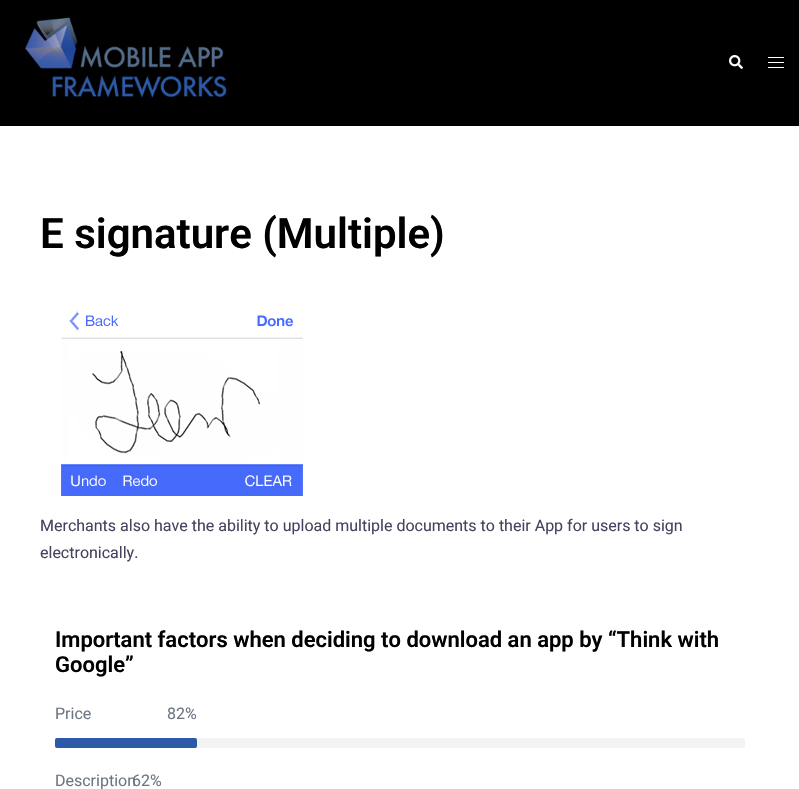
#include "include/core/SkBlurTypes.h"
#include "include/core/SkCanvas.h"
#include "include/core/SkData.h"
#include "include/core/SkFont.h"
#include "include/core/SkFontMgr.h"
#include "include/core/SkImage.h"
#include "include/core/SkMaskFilter.h"
#include "include/core/SkPaint.h"
#include "include/core/SkPathBuilder.h"
#include "include/core/SkTextBlob.h"
#include "include/effects/SkDashPathEffect.h"
#include "include/effects/SkGradientShader.h"
#include "include/utils/SkParsePath.h"

extern sk_sp<SkFontMgr> fontMgr;

static SkFont font(const char* family, int weight, float size, bool italic = false) {
    SkFontStyle style(weight, SkFontStyle::kNormal_Width,
        italic ? SkFontStyle::kItalic_Slant : SkFontStyle::kUpright_Slant);
    SkFont result(fontMgr->matchFamilyStyle(family, style), size);
    result.setSubpixel(true);
    return result;
}

static void drawLabel(SkCanvas* canvas, const char* s, float x, float y, const SkFont& font, SkColor color) {
    SkPaint ink(SkColor4f::FromColor(color));
    ink.setAntiAlias(true);
    canvas->drawString(s, x, y, font, ink);
}

static void fillRect(SkCanvas* canvas, float x, float y, float w, float h, SkColor color) {
    SkPaint ink(SkColor4f::FromColor(color));
    ink.setAntiAlias(true);
    canvas->drawRect(SkRect::MakeXYWH(x, y, w, h), ink);
}

static void fillRRect(SkCanvas* canvas, float x, float y, float w, float h, float radius, SkColor color) {
    SkPaint ink(SkColor4f::FromColor(color));
    ink.setAntiAlias(true);
    canvas->drawRoundRect(SkRect::MakeXYWH(x, y, w, h), radius, radius, ink);
}

static void drawPhoto(SkCanvas* canvas, const char* path, float x, float y, float w, float h) {
    auto image = SkImages::DeferredFromEncodedData(SkData::MakeFromFileName(path));
    canvas->drawImageRect(image, SkRect::MakeXYWH(x, y, w, h), SkSamplingOptions());
}

void draw(SkCanvas* canvas) {
    SkPaint paint;
    paint.setAntiAlias(true);
    canvas->clear(0xFFFFFFFF);
    fillRect(canvas, 0, 0, 799, 126, 0xFF000000);
    drawPhoto(canvas, "assets/img1.png", 25, 17, 202, 81);
    drawPhoto(canvas, "assets/img2.png", 729, 55, 14, 14);
    fillRect(canvas, 768, 57, 16, 1, 0xFFFFFFFF);
    fillRect(canvas, 768, 62, 16, 1, 0xFFFFFFFF);
    fillRect(canvas, 768, 67, 16, 1, 0xFFFFFFFF);
    SkFont font1 = font("Roboto", 600, 42);
    drawLabel(canvas, "E signature (Multiple)", 40, 248, font1, 0xFF000000);
    drawPhoto(canvas, "assets/img3.png", 61, 311, 242, 185);
    SkFont font2 = font("Roboto", 400, 16);
    drawLabel(canvas, "Merchants also have the ability to upload multiple documents to their App for users to sign", 40, 531, font2, 0xFF47425D);
    drawLabel(canvas, "electronically.", 40, 558, font2, 0xFF47425D);
    SkFont font3 = font("Roboto", 600, 22);
    drawLabel(canvas, "Important factors when deciding to download an app by “Think with", 55, 647, font3, 0xFF000000);
    drawLabel(canvas, "Google”", 55, 672, font3, 0xFF000000);
    drawLabel(canvas, "Price", 55, 719, font2, 0xFF6D7685);
    drawLabel(canvas, "82%", 167, 719, font2, 0xFF6D7685);
    fillRRect(canvas, 55, 738, 690, 10, 2, 0xFFF3F3F3);
    fillRRect(canvas, 55, 738, 142, 10, 2, 0xFF2C5AA9);
    drawLabel(canvas, "62%", 132, 786, font2, 0xFF6D7685);
    drawLabel(canvas, "Description", 55, 786, font2, 0xFF6D7685);
}
